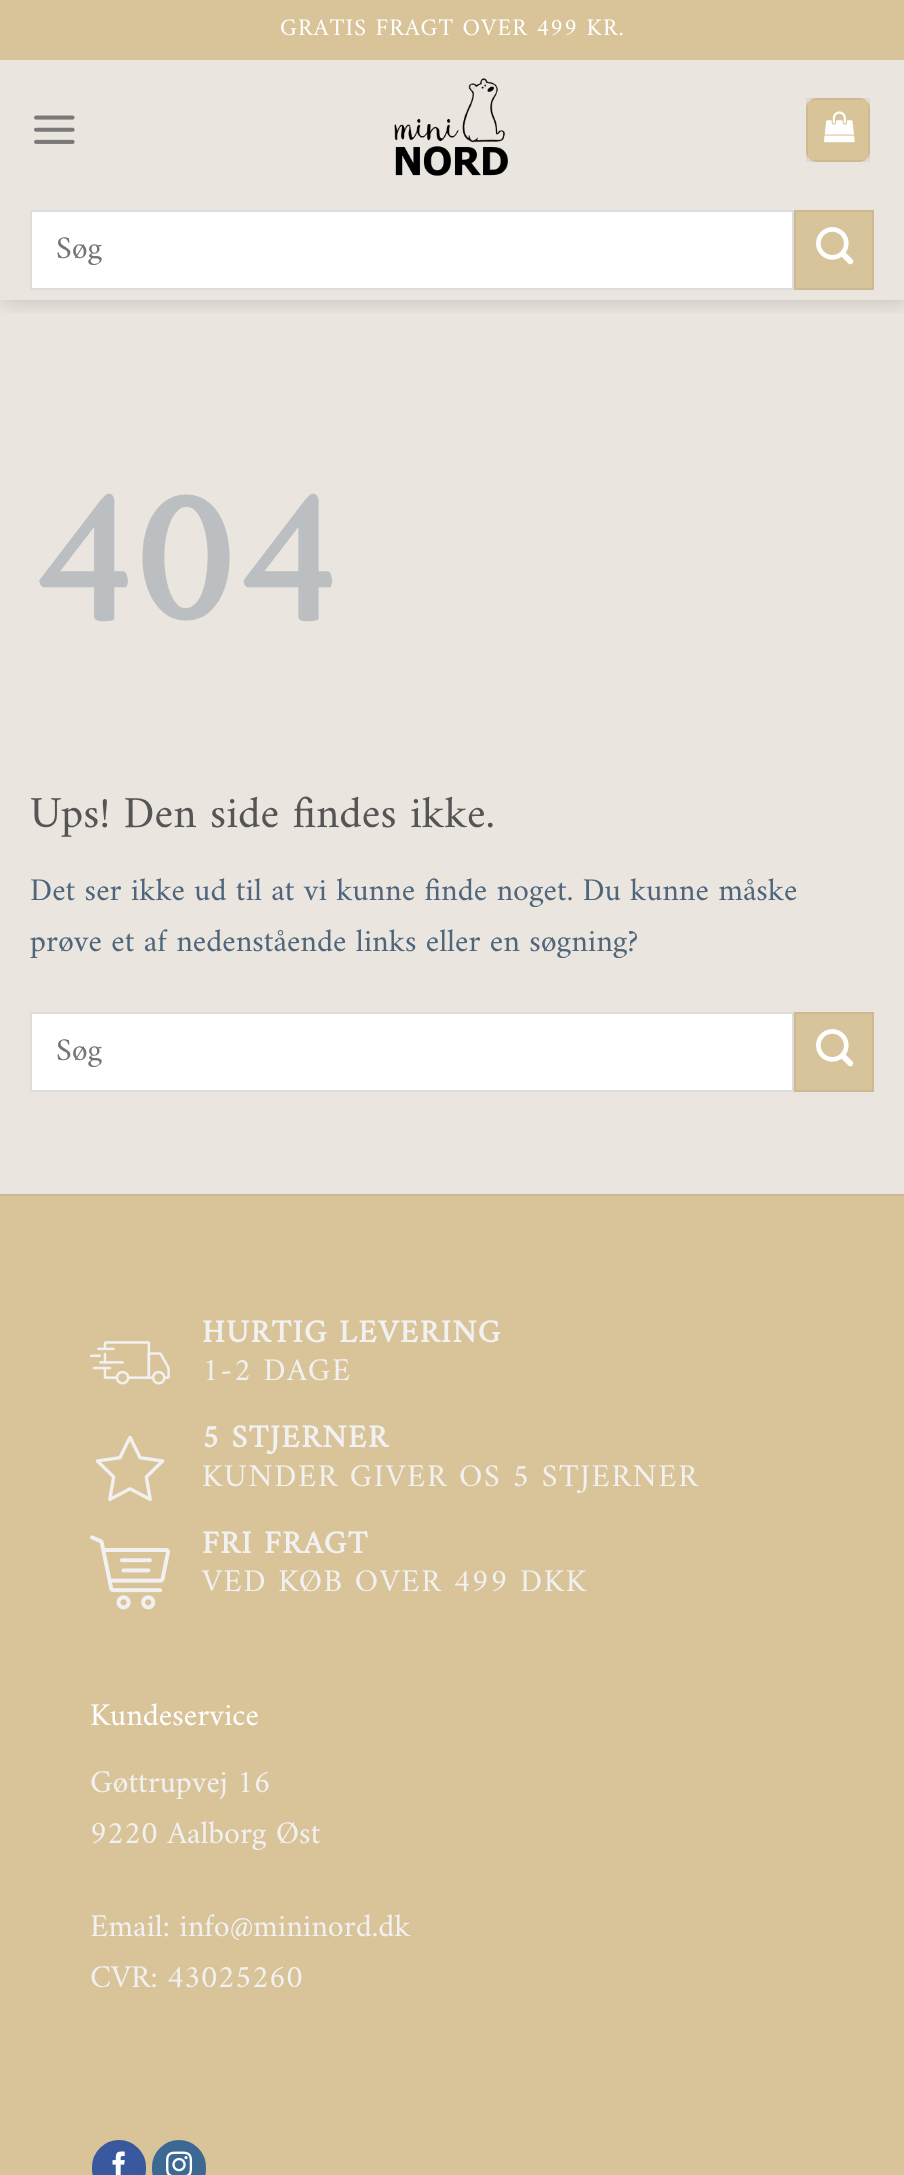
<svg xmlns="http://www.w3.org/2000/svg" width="904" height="2175">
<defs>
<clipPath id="clip1"><rect x="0" y="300" width="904" height="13"/></clipPath>
</defs>
<rect width="100%" height="100%" fill="#eae5df"/>
<g clip-path="url(#clip1)">
<rect x="2" y="2" width="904" height="300" fill="#00000026" filter="blur(10px)"/>
</g>
<rect width="904" height="60" fill="#d9c49a"/>
<text x="280" y="35" style="font-family:Amiri;font-size:24px;letter-spacing:1.2px;fill:#fff">GRATIS FRAGT OVER 499 KR.</text>
<image x="34" y="115" width="41" height="29" href="media/1.png"/>
<image x="394" y="78" width="114" height="98" href="media/2.png"/>
<rect x="806" y="98" width="64" height="64" rx="10" fill="#d9c49a"/>
<rect x="807" y="99" width="62" height="62" fill="none" stroke="#0000000d" stroke-width="2"/>
<image x="824" y="111" width="31" height="32" href="media/3.png"/>
<rect x="31" y="211" width="762" height="78" fill="#fff" stroke="#ddd" stroke-width="2"/>
<text x="56" y="258" style="font-family:Amiri;font-size:32px;fill:#757575">Søg</text>
<rect x="795" y="211" width="78" height="78" fill="#d8c49a" stroke="#cdba92" stroke-width="2"/>
<image x="816" y="227" width="38" height="38" href="media/4.png"/>
<text x="30" y="620" style="font-family:Amiri;font-size:192px;font-weight:bold;fill:#bbbfc1">404</text>
<text x="30" y="827" word-spacing="0.5" style="font-family:Amiri;font-size:44.75px;fill:#555">Ups! Den side findes ikke.</text>
<text x="30" y="900" style="font-family:Amiri;font-size:32px;fill:#4e657b">Det ser ikke ud til at vi kunne finde noget. Du kunne måske</text>
<text x="30" y="951" style="font-family:Amiri;font-size:32px;fill:#4e657b">prøve et af nedenstående links eller en søgning?</text>
<rect x="31" y="1013" width="762" height="78" fill="#fff" stroke="#ddd" stroke-width="2"/>
<text x="56" y="1060" style="font-family:Amiri;font-size:32px;fill:#757575">Søg</text>
<rect x="795" y="1013" width="78" height="78" fill="#d8c49a" stroke="#cdba92" stroke-width="2"/>
<image x="816" y="1029" width="38" height="38" href="media/4.png"/>
<rect y="1196" width="904" height="979" fill="#d9c49a"/>
<rect y="1194" width="904" height="2" fill="#ceba92"/>
<image x="90" y="1341" width="80" height="44" href="media/5.png"/>
<text x="202" y="1342" style="font-family:Amiri;font-size:32px;font-weight:bold;letter-spacing:1.6px;fill:#f1f1f1">HURTIG LEVERING</text>
<text x="202" y="1380" style="font-family:Amiri;font-size:32px;letter-spacing:1.6px;fill:#f1f1f1">1-2 DAGE</text>
<image x="95" y="1435" width="70" height="66" href="media/6.png"/>
<text x="202" y="1447" style="font-family:Amiri;font-size:32px;font-weight:bold;letter-spacing:1.6px;fill:#f1f1f1">5 STJERNER</text>
<text x="202" y="1486" style="font-family:Amiri;font-size:32px;letter-spacing:1.6px;fill:#f1f1f1">KUNDER GIVER OS 5 STJERNER</text>
<image x="90" y="1535" width="80" height="75" href="media/7.png"/>
<text x="202" y="1553" style="font-family:Amiri;font-size:32px;font-weight:bold;letter-spacing:1.6px;fill:#f1f1f1">FRI FRAGT</text>
<text x="202" y="1591" style="font-family:Amiri;font-size:32px;letter-spacing:1.6px;fill:#f1f1f1">VED KØB OVER 499 DKK</text>
<text x="90" y="1725" style="font-family:Amiri;font-size:32px;fill:#fff">Kundeservice</text>
<text x="90" y="1792" style="font-family:Amiri;font-size:32px;fill:#f1f1f1">Gøttrupvej 16</text>
<text x="90" y="1843" style="font-family:Amiri;font-size:32px;fill:#f1f1f1">9220 Aalborg Øst</text>
<text x="90" y="1936" style="font-family:Amiri;font-size:32px;fill:#f1f1f1">Email: info@mininord.dk</text>
<text x="90" y="1987" style="font-family:Amiri;font-size:32px;fill:#f1f1f1">CVR: 43025260</text>
<rect x="93" y="2141" width="52" height="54" rx="26" fill="#3a589d" stroke="#3a589d" stroke-width="2"/>
<image x="112" y="2151" width="13" height="24" href="media/8.png"/>
<rect x="153" y="2141" width="52" height="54" rx="26" fill="#3b6994" stroke="#3b6994" stroke-width="2"/>
<image x="166" y="2151" width="27" height="24" href="media/9.png"/>
</svg>
